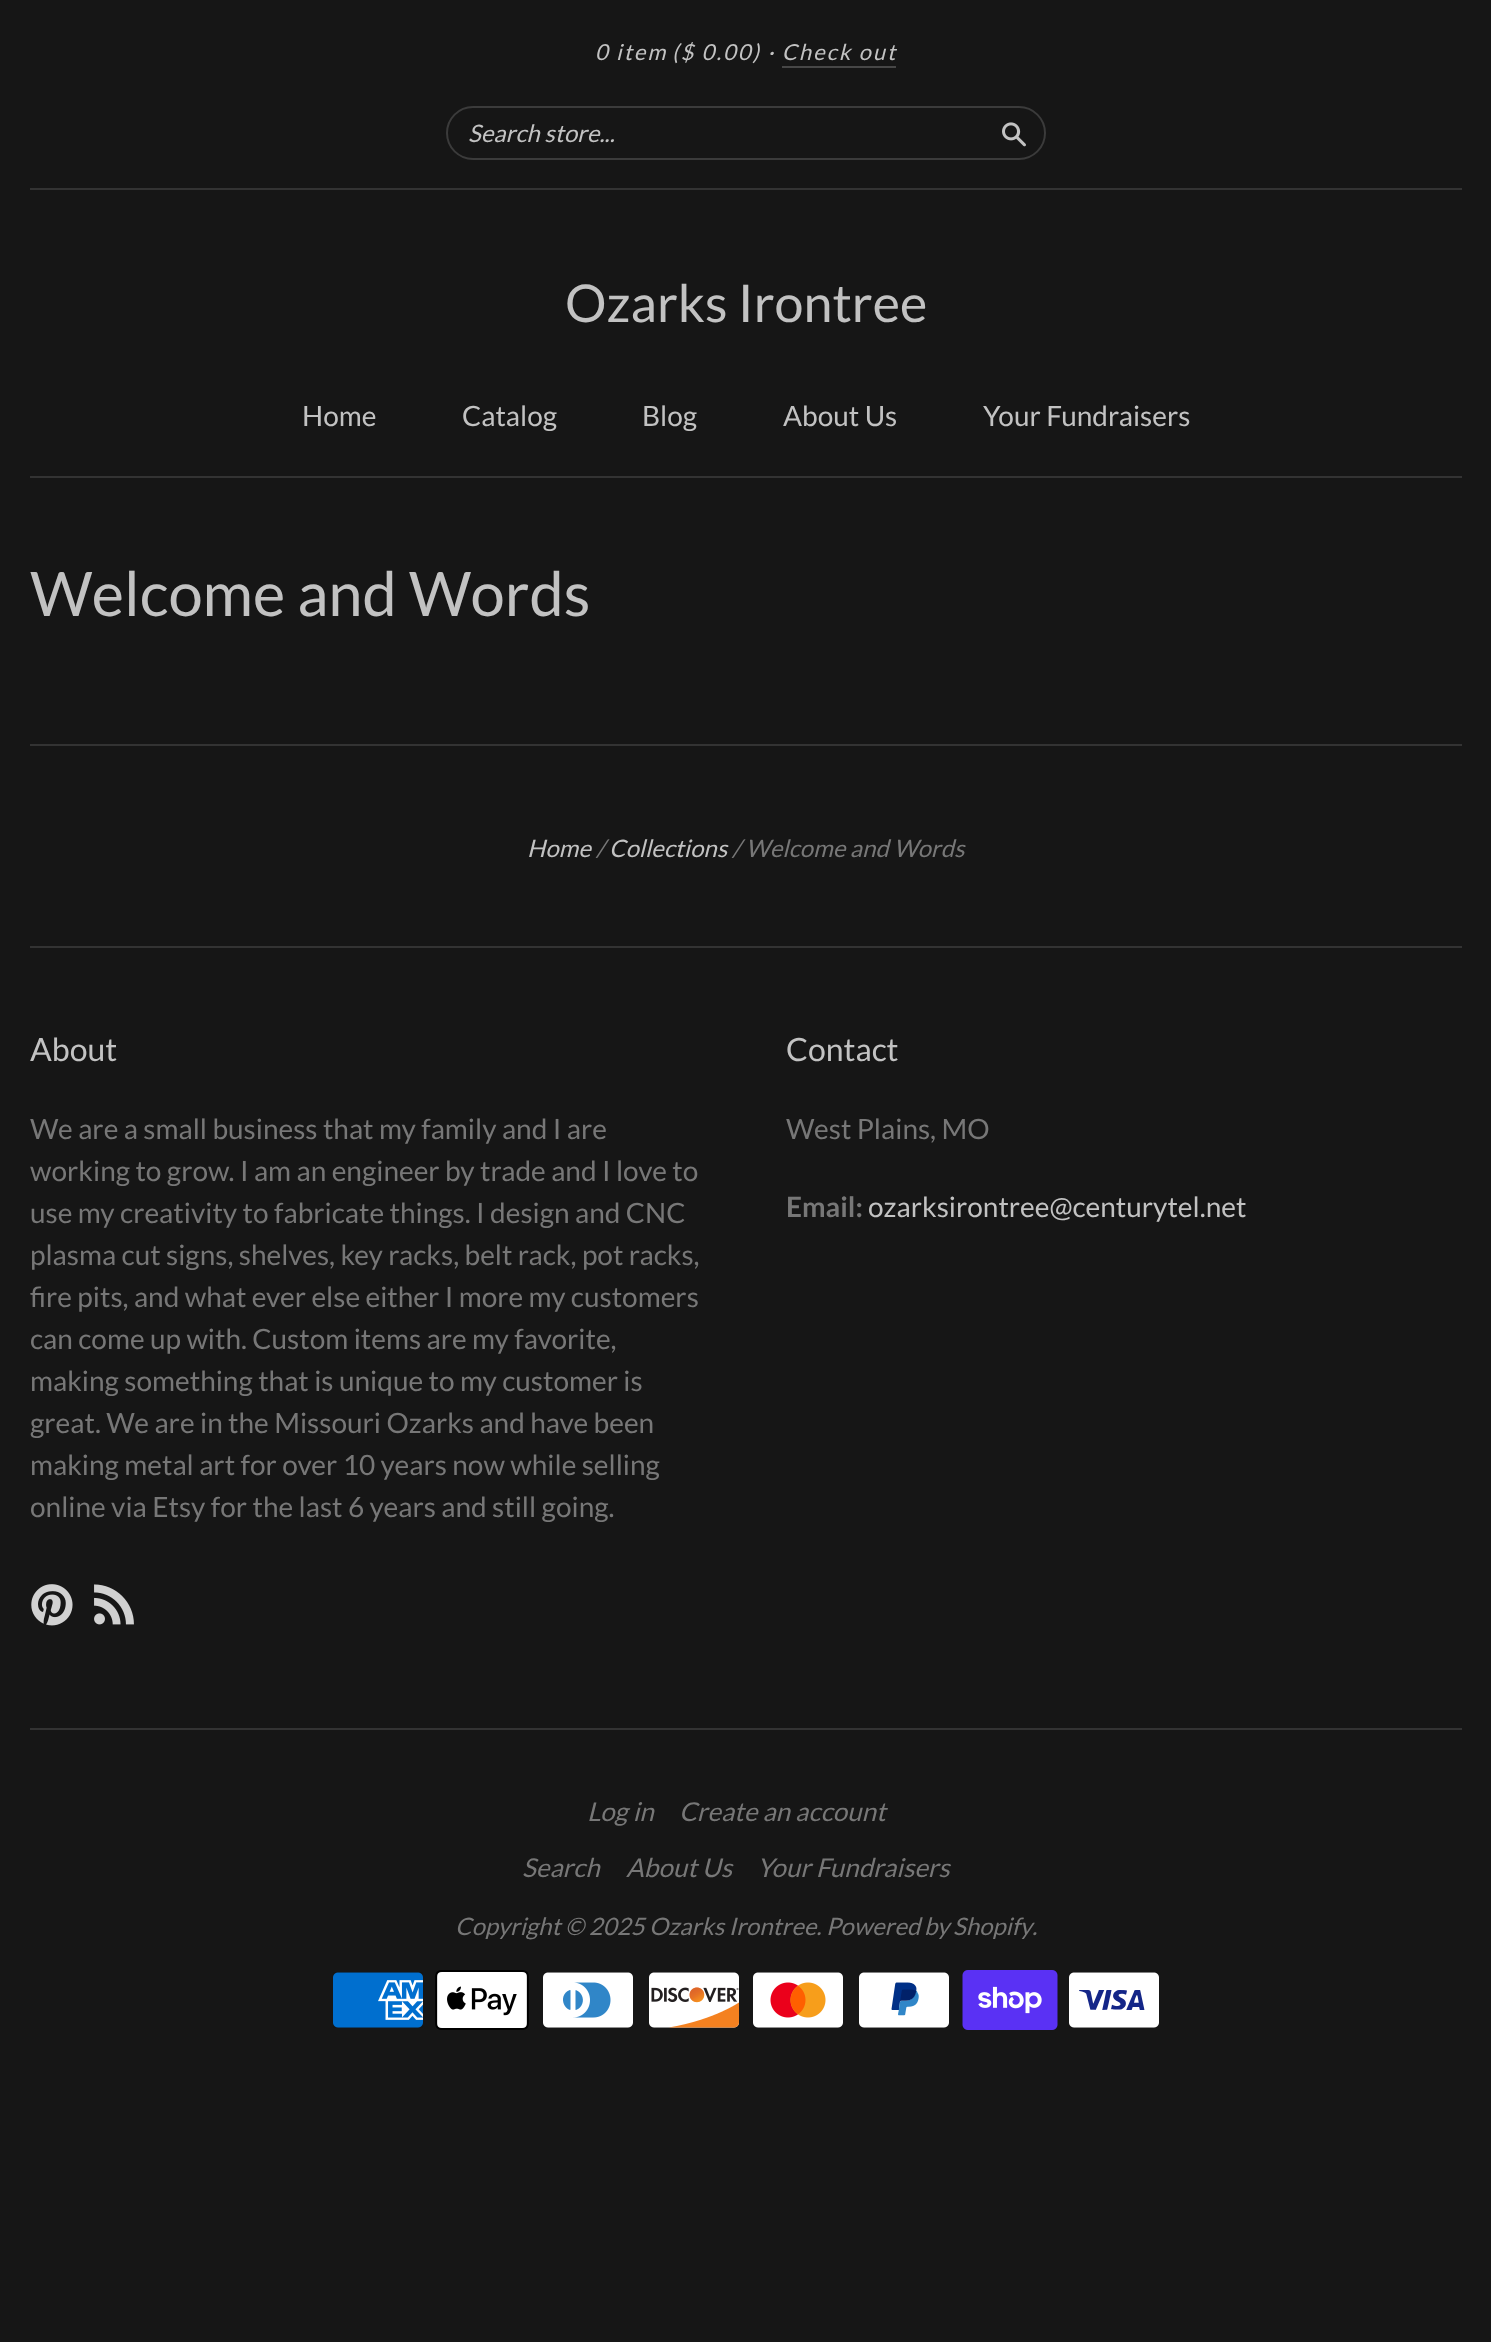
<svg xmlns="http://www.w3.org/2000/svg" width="1491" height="2342">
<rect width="100%" height="100%" fill="#161616"/>
<rect x="30" y="476" width="1432" height="2" fill="#333"/>
<rect x="30" y="188" width="1432" height="2" fill="#333"/>
<text x="595" y="60" style="font-family:Lato;font-size:22px;font-style:italic;letter-spacing:2px;fill:#c2c2c2">0 item</text>
<text x="672" y="60" style="font-family:Lato;font-size:22px;font-style:italic;letter-spacing:2px;fill:#c2c2c2">($ 0.00) · Check out</text>
<rect x="782" y="66" width="114" height="2" fill="#474747"/>
<rect x="447" y="107" width="598" height="52" rx="26" fill="none" stroke="#3b3b3b" stroke-width="2"/>
<text x="468" y="142" style="font-family:Lato;font-size:24px;font-style:italic;fill:#c2c2c2">Search store...</text>
<image x="1002" y="122" width="24" height="25" href="media/1.png"/>
<text x="565" y="322" style="font-family:Lato;font-size:52px;fill:#c2c2c2">Ozarks Irontree</text>
<text x="302" y="426" style="font-family:Lato;font-size:28px;fill:#c2c2c2">Home</text>
<text x="462" y="426" style="font-family:Lato;font-size:28px;fill:#c2c2c2">Catalog</text>
<text x="642" y="426" style="font-family:Lato;font-size:28px;fill:#c2c2c2">Blog</text>
<text x="783" y="426" style="font-family:Lato;font-size:28px;fill:#c2c2c2">About Us</text>
<text x="983" y="426" style="font-family:Lato;font-size:28px;fill:#c2c2c2">Your Fundraisers</text>
<text x="30" y="616" style="font-family:Lato;font-size:61.5px;fill:#c2c2c2">Welcome and Words</text>
<rect x="30" y="744" width="1432" height="2" fill="#333"/>
<text x="527" y="857" style="font-family:Lato;font-size:24px;font-style:italic;fill:#c2c2c2">Home</text>
<text x="596" y="857" style="font-family:Lato;font-size:24px;font-style:italic;fill:#777">/</text>
<text x="609" y="857" style="font-family:Lato;font-size:24px;font-style:italic;fill:#c2c2c2">Collections</text>
<text x="732" y="857" style="font-family:Lato;font-size:24px;font-style:italic;fill:#777">/ Welcome and Words</text>
<rect x="30" y="946" width="1432" height="2" fill="#333"/>
<text x="30" y="1061" style="font-family:Lato;font-size:32px;fill:#c2c2c2">About</text>
<text x="30" y="1139" style="font-family:Lato;font-size:28px;fill:#777">We are a small business that my family and I are</text>
<text x="30" y="1181" style="font-family:Lato;font-size:28px;fill:#777">working to grow. I am an engineer by trade and I love to</text>
<text x="30" y="1223" style="font-family:Lato;font-size:28px;fill:#777">use my creativity to fabricate things. I design and CNC</text>
<text x="30" y="1265" style="font-family:Lato;font-size:28px;fill:#777">plasma cut signs, shelves, key racks, belt rack, pot racks,</text>
<text x="30" y="1307" style="font-family:Lato;font-size:28px;fill:#777">fire pits, and what ever else either I more my customers</text>
<text x="30" y="1349" style="font-family:Lato;font-size:28px;fill:#777">can come up with. Custom items are my favorite,</text>
<text x="30" y="1391" style="font-family:Lato;font-size:28px;fill:#777">making something that is unique to my customer is</text>
<text x="30" y="1433" style="font-family:Lato;font-size:28px;fill:#777">great. We are in the Missouri Ozarks and have been</text>
<text x="30" y="1475" style="font-family:Lato;font-size:28px;fill:#777">making metal art for over 10 years now while selling</text>
<text x="30" y="1517" style="font-family:Lato;font-size:28px;fill:#777">online via Etsy for the last 6 years and still going.</text>
<image x="31" y="1584" width="42" height="42" href="media/2.png"/>
<image x="94" y="1584" width="40" height="41" href="media/3.png"/>
<text x="786" y="1061" style="font-family:Lato;font-size:32px;fill:#c2c2c2">Contact</text>
<text x="786" y="1139" style="font-family:Lato;font-size:28px;fill:#777">West Plains, MO</text>
<text x="786" y="1217" style="font-family:Lato;font-size:28px;font-weight:bold;fill:#777">Email:</text>
<text x="868" y="1217" style="font-family:Lato;font-size:28px;fill:#c2c2c2">ozarksirontree@centurytel.net</text>
<rect x="30" y="1728" width="1432" height="2" fill="#333"/>
<text x="587" y="1821" style="font-family:Lato;font-size:26px;font-style:italic;fill:#777">Log in</text>
<text x="679" y="1821" style="font-family:Lato;font-size:26px;font-style:italic;fill:#777">Create an account</text>
<text x="522" y="1877" style="font-family:Lato;font-size:26px;font-style:italic;fill:#777">Search</text>
<text x="626" y="1877" style="font-family:Lato;font-size:26px;font-style:italic;fill:#777">About Us</text>
<text x="757" y="1877" style="font-family:Lato;font-size:26px;font-style:italic;fill:#777">Your Fundraisers</text>
<text x="455" y="1935" style="font-family:Lato;font-size:24px;font-style:italic;fill:#777">Copyright © 2025 Ozarks Irontree.</text>
<text x="826" y="1935" word-spacing="-1" style="font-family:Lato;font-size:24px;font-style:italic;fill:#777">Powered by Shopify</text>
<text x="1032" y="1935" style="font-family:Lato;font-size:24px;font-style:italic;fill:#777">.</text>
<image x="333" y="1972" width="90" height="56" href="media/4.png"/>
<image x="435" y="1970" width="94" height="60" href="media/5.png"/>
<image x="543" y="1972" width="90" height="56" href="media/6.png"/>
<image x="649" y="1972" width="91" height="56" href="media/7.png"/>
<image x="753" y="1972" width="90" height="56" href="media/8.png"/>
<image x="859" y="1972" width="90" height="56" href="media/9.png"/>
<image x="962" y="1970" width="96" height="60" href="media/10.png"/>
<image x="1069" y="1972" width="90" height="56" href="media/11.png"/>
</svg>
